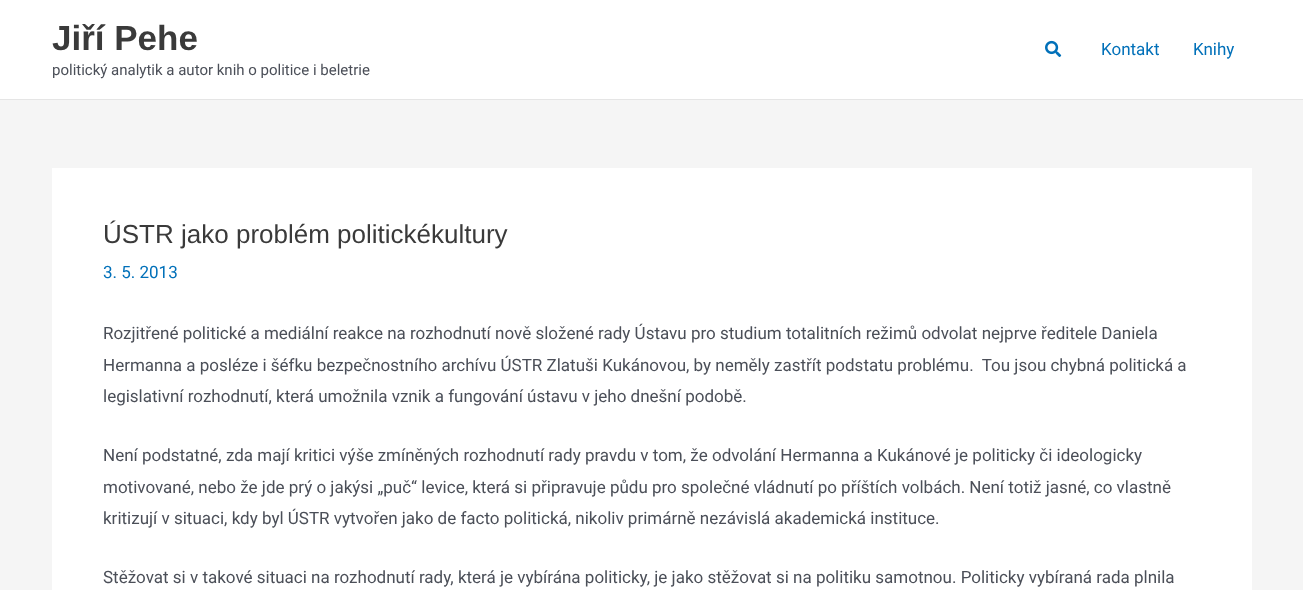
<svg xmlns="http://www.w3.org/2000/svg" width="1303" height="590">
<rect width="100%" height="100%" fill="#f5f5f5"/>
<rect width="1303" height="99" fill="#fff"/>
<rect y="99" width="1303" height="1" fill="#e5e5e5"/>
<text x="52" y="50" style="font-family:Liberation Sans;font-size:35px;font-weight:bold;fill:#3a3a3a">Jiří Pehe</text>
<text x="52" y="75" style="font-family:Roboto;font-size:15px;fill:#4b4f58">politický analytik a autor knih o politice i beletrie</text>
<image x="1045" y="40" width="17" height="17" href="media/1.png"/>
<text x="1101" y="55" style="font-family:Roboto;font-size:17px;fill:#0170b9">Kontakt</text>
<text x="1193" y="55" style="font-family:Roboto;font-size:17px;fill:#0170b9">Knihy</text>
<rect x="52" y="168" width="1200" height="422" fill="#fff"/>
<text x="103" y="243" style="font-family:Liberation Sans;font-size:26px;fill:#3a3a3a">ÚSTR jako problém politickékultury</text>
<text x="103" y="278" style="font-family:Roboto;font-size:17px;fill:#0170b9">3. 5. 2013</text>
<text x="103" y="339" style="font-family:Roboto;font-size:17px;fill:#4b4f58">Rozjitřené politické a mediální reakce na rozhodnutí nově složené rady Ústavu pro studium totalitních režimů odvolat nejprve ředitele Daniela</text>
<text x="103" y="371" style="font-family:Roboto;font-size:17px;fill:#4b4f58" xml:space="preserve">Hermanna a posléze i šéfku bezpečnostního archívu ÚSTR Zlatuši Kukánovou, by neměly zastřít podstatu problému.  Tou jsou chybná politická a</text>
<text x="103" y="402" style="font-family:Roboto;font-size:17px;fill:#4b4f58">legislativní rozhodnutí, která umožnila vznik a fungování ústavu v jeho dnešní podobě.</text>
<text x="103" y="461" style="font-family:Roboto;font-size:17px;fill:#4b4f58">Není podstatné, zda mají kritici výše zmíněných rozhodnutí rady pravdu v tom, že odvolání Hermanna a Kukánové je politicky či ideologicky</text>
<text x="103" y="493" style="font-family:Roboto;font-size:17px;fill:#4b4f58">motivované, nebo že jde prý o jakýsi „puč“ levice, která si připravuje půdu pro společné vládnutí po příštích volbách. Není totiž jasné, co vlastně</text>
<text x="103" y="524" style="font-family:Roboto;font-size:17px;fill:#4b4f58">kritizují v situaci, kdy byl ÚSTR vytvořen jako de facto politická, nikoliv primárně nezávislá akademická instituce.</text>
<text x="103" y="583" style="font-family:Roboto;font-size:17px;fill:#4b4f58">Stěžovat si v takové situaci na rozhodnutí rady, která je vybírána politicky, je jako stěžovat si na politiku samotnou. Politicky vybíraná rada plnila</text>
</svg>
